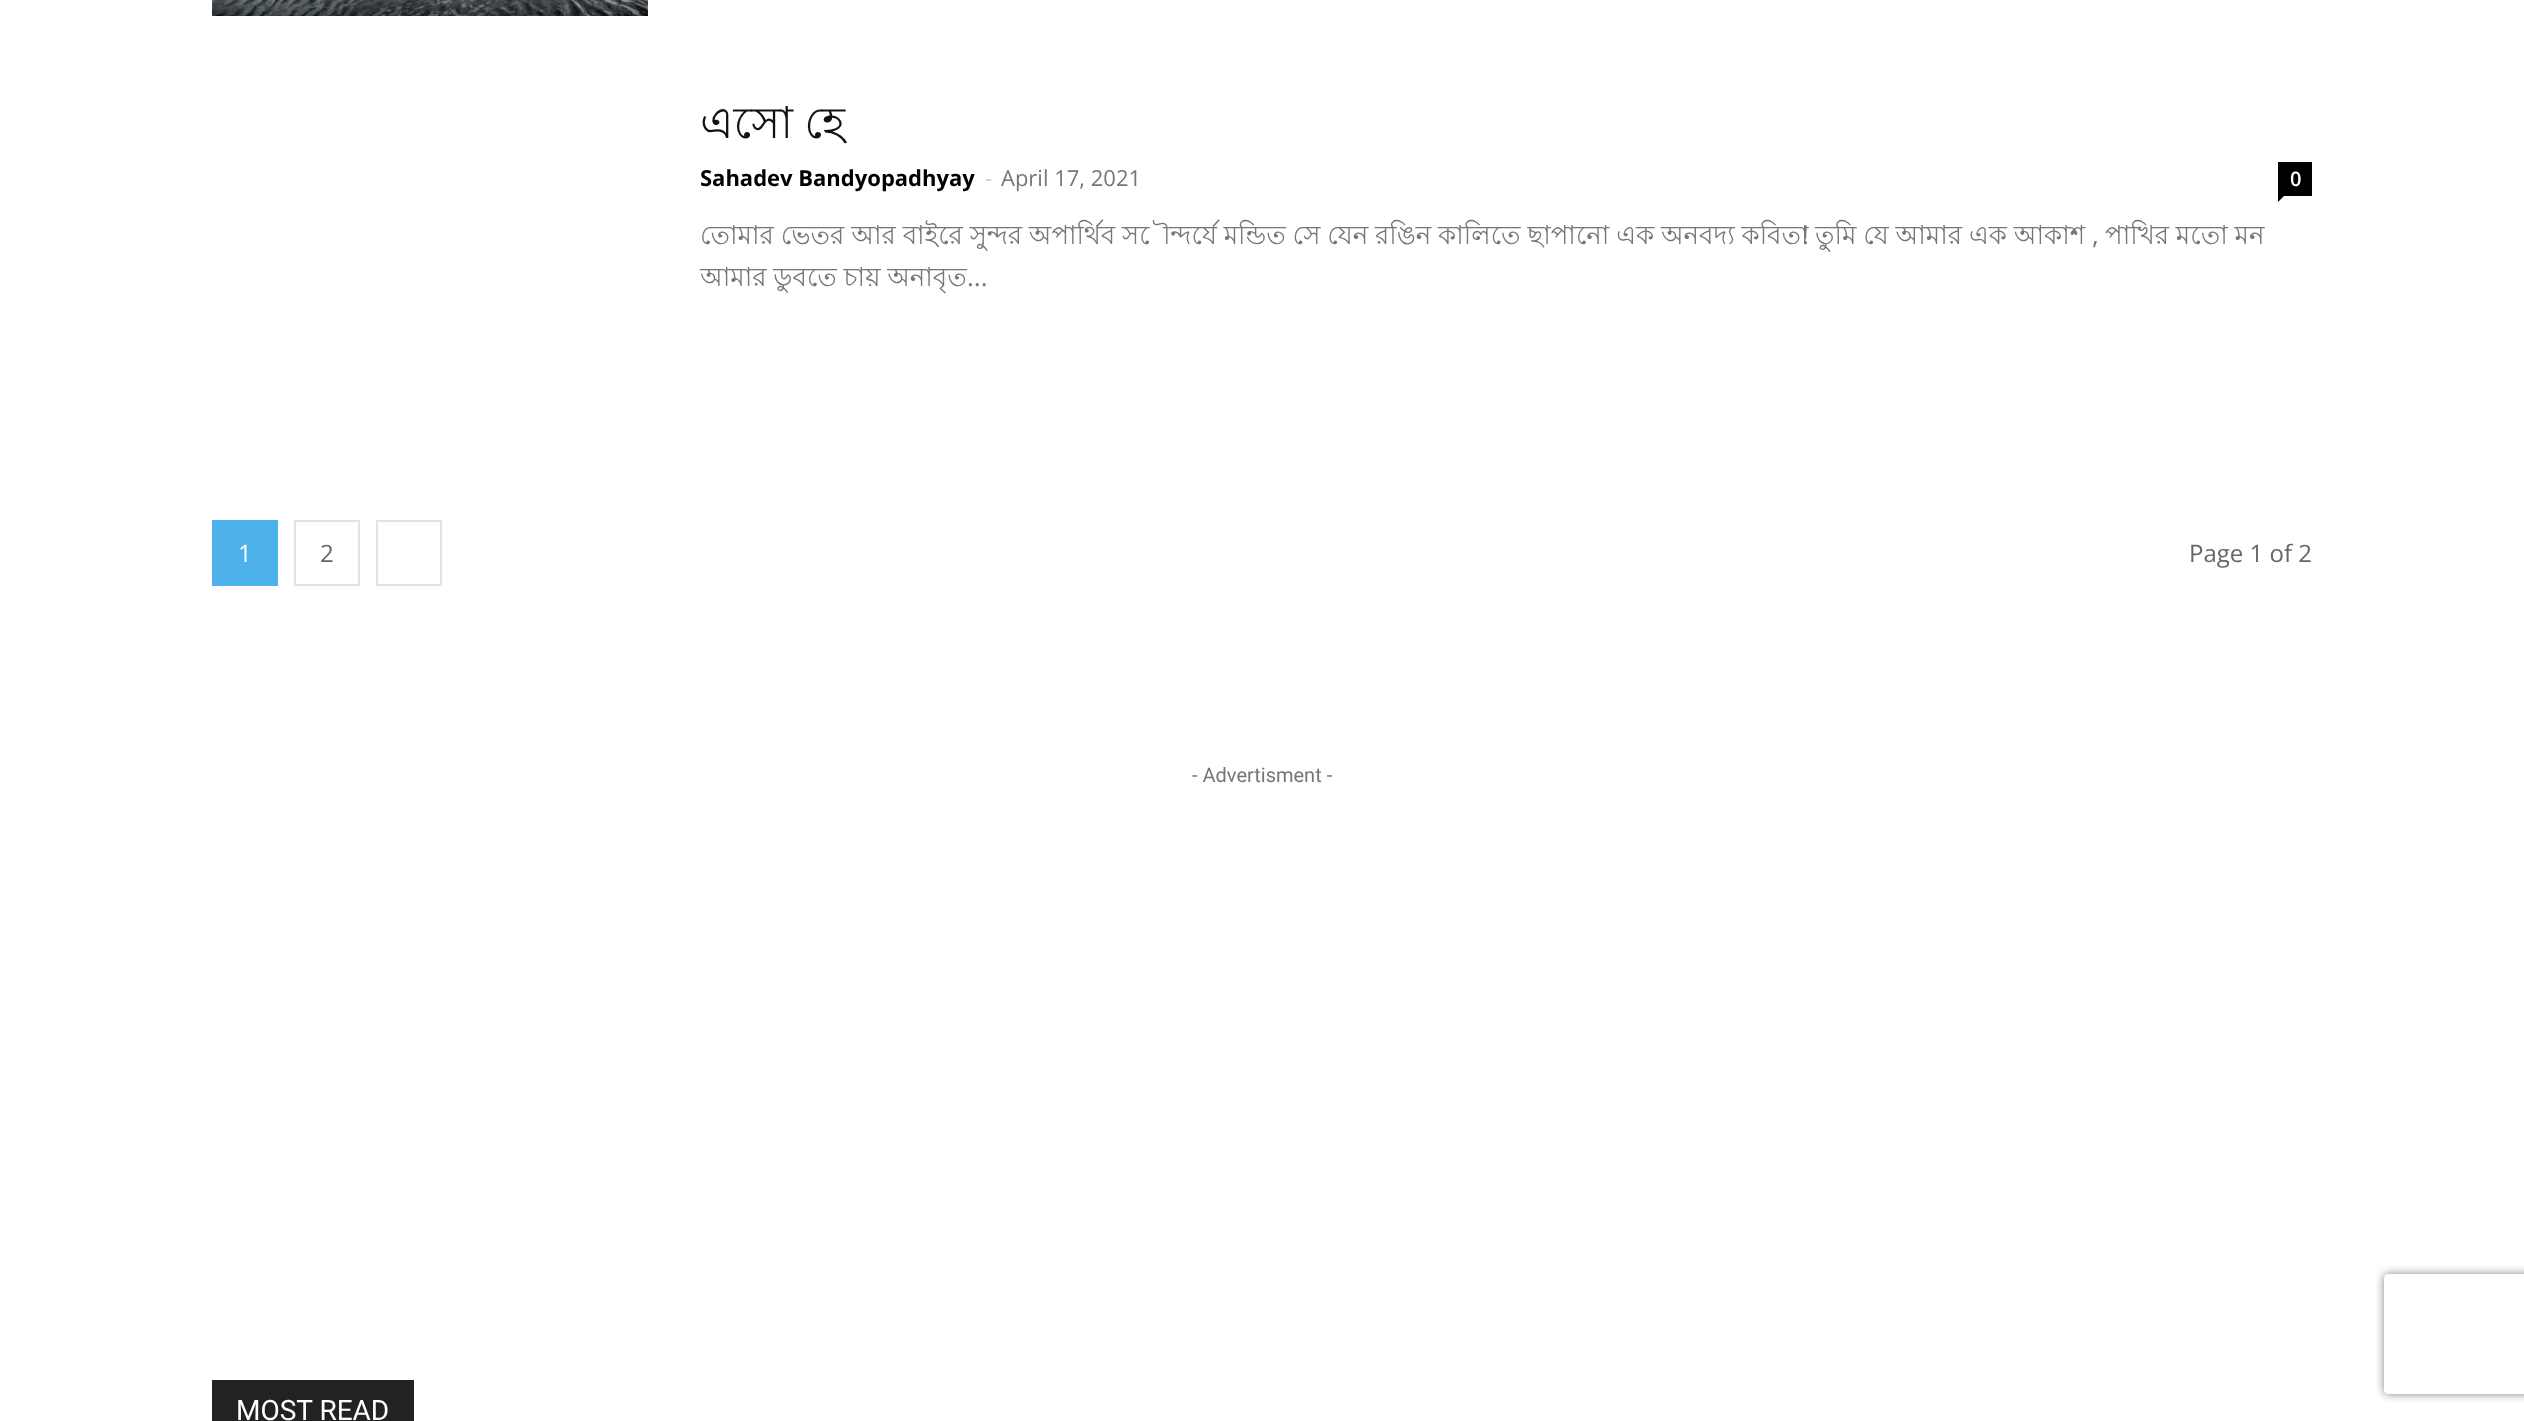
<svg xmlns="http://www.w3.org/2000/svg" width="2524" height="1421">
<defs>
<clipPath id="clip1"><path d="M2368 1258h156v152h-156zm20 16h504c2 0 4 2 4 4v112c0 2-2 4-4 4h-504c-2 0-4-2-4-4v-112c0-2 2-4 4-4z" clip-rule="evenodd"/></clipPath>
</defs>
<rect width="100%" height="100%" fill="#fff"/>
<image x="212" y="0" width="436" height="16" href="media/1.png"/>
<text x="700" y="138" word-spacing="-1" style="font-family:Lohit Bengali;font-size:44px;fill:#111">এসো হে</text>
<text x="700" y="186" style="font-family:Open Sans;font-size:22px;font-weight:bold;fill:#000">Sahadev Bandyopadhyay</text>
<text x="985" y="186" style="font-family:Open Sans;font-size:22px;fill:#ccc">-</text>
<text x="1001" y="186" style="font-family:Open Sans;font-size:22px;fill:#767676">April 17, 2021</text>
<rect x="2278" y="162" width="34" height="34" fill="#000"/>
<text x="2290" y="186" style="font-family:Open Sans;font-size:20px;font-weight:600;fill:#fff">0</text>
<path d="M2278 196h6l-6 6z" fill="#000"/>
<text x="700" y="244" word-spacing="-0.4" style="font-family:Lohit Bengali;font-size:26px;fill:#767676">তোমার ভেতর আর বাইরে সুন্দর অপার্থিব সৌন্দর্যে মন্ডিত সে যেন রঙিন কালিতে ছাপানো এক অনবদ্য কবিতা</text>
<text x="1802" y="244" style="font-family:Open Sans;font-size:26px;fill:#767676">!</text>
<text x="1815" y="244" word-spacing="-0.4" style="font-family:Lohit Bengali;font-size:26px;fill:#767676">তুমি যে আমার এক আকাশ</text>
<text x="2105" y="244" word-spacing="-0.4" style="font-family:Lohit Bengali;font-size:26px;fill:#767676">পাখির মতো মন</text>
<text x="2092" y="244" style="font-family:Open Sans;font-size:26px;fill:#767676">,</text>
<text x="700" y="286" word-spacing="-0.5" style="font-family:Lohit Bengali;font-size:26px;fill:#767676">আমার ডুবতে চায় অনাবৃত</text>
<text x="967" y="286" style="font-family:Open Sans;font-size:26px;fill:#767676">...</text>
<rect x="212" y="520" width="66" height="66" fill="#4db2ec"/>
<text x="238" y="562" style="font-family:Open Sans;font-size:24px;fill:#fff">1</text>
<rect x="295" y="521" width="64" height="64" fill="none" stroke="#e3e3e3" stroke-width="2"/>
<text x="320" y="562" style="font-family:Open Sans;font-size:24px;fill:#666">2</text>
<rect x="377" y="521" width="64" height="64" fill="none" stroke="#e3e3e3" stroke-width="2"/>
<text x="2189" y="562" style="font-family:Open Sans;font-size:24px;fill:#666">Page 1 of 2</text>
<text x="1192" y="782" style="font-family:Roboto;font-size:20px;fill:#767676">- Advertisment -</text>
<rect x="212" y="1380" width="202" height="41" fill="#222"/>
<text x="236" y="1420" style="font-family:Roboto;font-size:28px;fill:#fff">MOST READ</text>
<g clip-path="url(#clip1)">
<rect x="2384" y="1274" width="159" height="120" rx="4" fill="#808080" filter="blur(5px)"/>
</g>
</svg>
